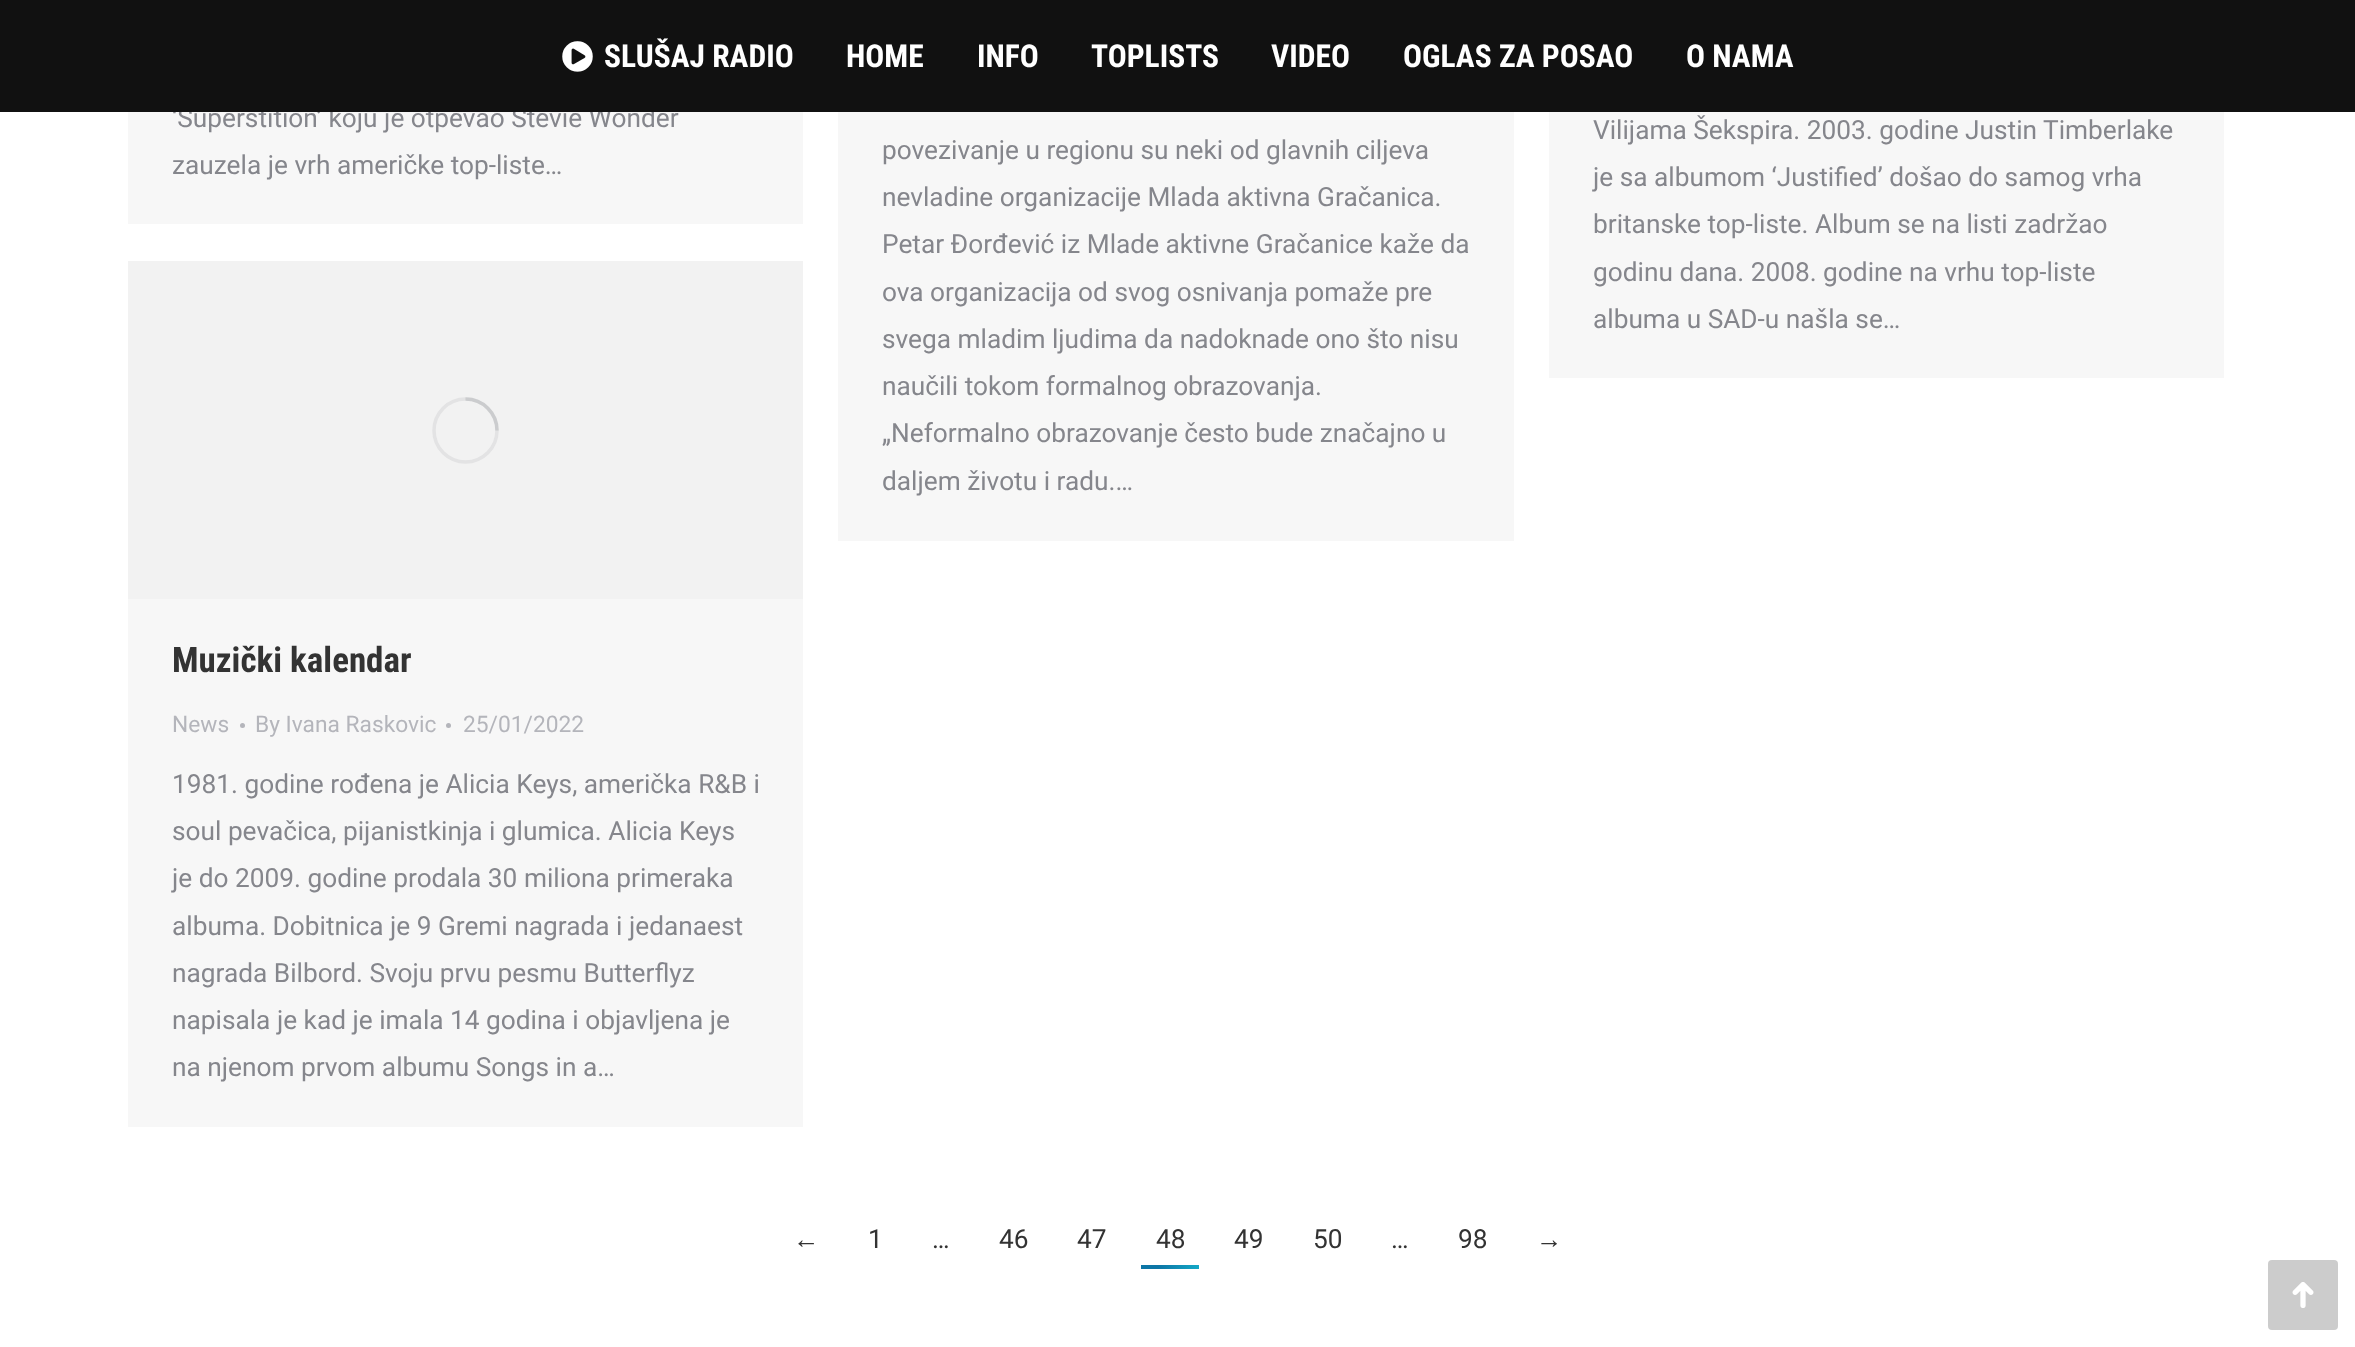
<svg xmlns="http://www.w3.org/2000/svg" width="2355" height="1347">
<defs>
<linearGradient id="g1" gradientUnits="userSpaceOnUse" x1="1141" y1="1267" x2="1199" y2="1267"><stop offset="0.3" stop-color="#0d76a6"/><stop offset="1" stop-color="#13a8c6"/></linearGradient>
</defs>
<rect width="100%" height="100%" fill="#fff"/>
<rect x="128" y="112" width="675" height="112" fill="#f7f7f7"/>
<text x="172" y="127" style="font-family:Roboto;font-size:26.25px;fill:#85868c">‘Superstition’ koju je otpevao Stevie Wonder</text>
<rect width="2355" height="112" fill="#111"/>
<image x="562" y="41" width="31" height="31" href="media/1.png"/>
<text x="604" y="67" style="font-family:Roboto Condensed;font-size:31.5px;font-weight:bold;fill:#fff">SLUŠAJ RADIO</text>
<text x="846" y="67" style="font-family:Roboto Condensed;font-size:31.5px;font-weight:bold;fill:#fff">HOME</text>
<text x="977" y="67" style="font-family:Roboto Condensed;font-size:31.5px;font-weight:bold;fill:#fff">INFO</text>
<text x="1091" y="67" style="font-family:Roboto Condensed;font-size:31.5px;font-weight:bold;fill:#fff">TOPLISTS</text>
<text x="1271" y="67" style="font-family:Roboto Condensed;font-size:31.5px;font-weight:bold;fill:#fff">VIDEO</text>
<text x="1403" y="67" style="font-family:Roboto Condensed;font-size:31.5px;font-weight:bold;fill:#fff">OGLAS ZA POSAO</text>
<text x="1686" y="67" style="font-family:Roboto Condensed;font-size:31.5px;font-weight:bold;fill:#fff">O NAMA</text>
<text x="172" y="174" style="font-family:Roboto;font-size:26.25px;fill:#85868c">zauzela je vrh američke top-liste…</text>
<rect x="838" y="112" width="676" height="429" fill="#f7f7f7"/>
<text x="882" y="159" style="font-family:Roboto;font-size:26.25px;fill:#85868c">povezivanje u regionu su neki od glavnih ciljeva</text>
<text x="882" y="206" style="font-family:Roboto;font-size:26.25px;fill:#85868c">nevladine organizacije Mlada aktivna Gračanica.</text>
<text x="882" y="253" style="font-family:Roboto;font-size:26.25px;fill:#85868c">Petar Đorđević iz Mlade aktivne Gračanice kaže da</text>
<text x="882" y="301" style="font-family:Roboto;font-size:26.25px;fill:#85868c">ova organizacija od svog osnivanja pomaže pre</text>
<text x="882" y="348" style="font-family:Roboto;font-size:26.25px;fill:#85868c">svega mladim ljudima da nadoknade ono što nisu</text>
<text x="882" y="395" style="font-family:Roboto;font-size:26.25px;fill:#85868c">naučili tokom formalnog obrazovanja.</text>
<text x="882" y="442" style="font-family:Roboto;font-size:26.25px;fill:#85868c">„Neformalno obrazovanje često bude značajno u</text>
<text x="882" y="490" style="font-family:Roboto;font-size:26.25px;fill:#85868c">daljem životu i radu.…</text>
<rect x="1549" y="112" width="675" height="266" fill="#f7f7f7"/>
<text x="1593" y="139" style="font-family:Roboto;font-size:26.25px;fill:#85868c">Vilijama Šekspira. 2003. godine Justin Timberlake</text>
<text x="1593" y="186" style="font-family:Roboto;font-size:26.25px;fill:#85868c">je sa albumom ‘Justified’ došao do samog vrha</text>
<text x="1593" y="233" style="font-family:Roboto;font-size:26.25px;fill:#85868c">britanske top-liste. Album se na listi zadržao</text>
<text x="1593" y="281" style="font-family:Roboto;font-size:26.25px;fill:#85868c">godinu dana. 2008. godine na vrhu top-liste</text>
<text x="1593" y="328" style="font-family:Roboto;font-size:26.25px;fill:#85868c">albuma u SAD-u našla se…</text>
<rect x="128" y="599" width="675" height="528" fill="#f7f7f7"/>
<rect x="128" y="261" width="675" height="338" fill="#f2f2f2"/>
<circle cx="465.5" cy="430.5" r="31.5" fill="none" stroke="#e3e3e4" stroke-width="3.5"/>
<path d="M497 430.5c0-17.5-14-31.5-31.5-31.5" fill="none" stroke="#85868c40" stroke-width="3.5"/>
<text x="172" y="672" style="font-family:Roboto Condensed;font-size:35px;font-weight:bold;fill:#333">Muzički kalendar</text>
<text x="172" y="732" style="font-family:Roboto;font-size:22.75px;fill:#b4b5bb">News</text>
<circle cx="242.5" cy="725.5" r="2.5" fill="#b4b5bb"/>
<text x="255" y="732" style="font-family:Roboto;font-size:22.75px;fill:#b4b5bb">By Ivana Raskovic</text>
<circle cx="448.5" cy="725.5" r="2.5" fill="#b4b5bb"/>
<text x="463" y="732" style="font-family:Roboto;font-size:22.75px;fill:#b4b5bb">25/01/2022</text>
<text x="172" y="793" style="font-family:Roboto;font-size:26.25px;fill:#85868c">1981. godine rođena je Alicia Keys, američka R&amp;B i</text>
<text x="172" y="840" style="font-family:Roboto;font-size:26.25px;fill:#85868c">soul pevačica, pijanistkinja i glumica. Alicia Keys</text>
<text x="172" y="887" style="font-family:Roboto;font-size:26.25px;fill:#85868c">je do 2009. godine prodala 30 miliona primeraka</text>
<text x="172" y="935" style="font-family:Roboto;font-size:26.25px;fill:#85868c">albuma. Dobitnica je 9 Gremi nagrada i jedanaest</text>
<text x="172" y="982" style="font-family:Roboto;font-size:26.25px;fill:#85868c">nagrada Bilbord. Svoju prvu pesmu Butterflyz</text>
<text x="172" y="1029" style="font-family:Roboto;font-size:26.25px;fill:#85868c">napisala je kad je imala 14 godina i objavljena je</text>
<text x="172" y="1076" style="font-family:Roboto;font-size:26.25px;fill:#85868c">na njenom prvom albumu Songs in a…</text>
<text x="793" y="1248" style="font-family:Liberation Sans;font-size:26.25px;fill:#333">←</text>
<text x="868" y="1248" style="font-family:Roboto;font-size:26.25px;fill:#333">1</text>
<text x="932" y="1248" style="font-family:Roboto;font-size:26.25px;fill:#333">…</text>
<text x="999" y="1248" style="font-family:Roboto;font-size:26.25px;fill:#333">46</text>
<text x="1077" y="1248" style="font-family:Roboto;font-size:26.25px;fill:#333">47</text>
<text x="1156" y="1248" style="font-family:Roboto;font-size:26.25px;fill:#333">48</text>
<rect x="1141" y="1265" width="58" height="4" fill="url(#g1)"/>
<text x="1234" y="1248" style="font-family:Roboto;font-size:26.25px;fill:#333">49</text>
<text x="1313" y="1248" style="font-family:Roboto;font-size:26.25px;fill:#333">50</text>
<text x="1391" y="1248" style="font-family:Roboto;font-size:26.25px;fill:#333">…</text>
<text x="1458" y="1248" style="font-family:Roboto;font-size:26.25px;fill:#333">98</text>
<text x="1536" y="1248" style="font-family:Liberation Sans;font-size:26.25px;fill:#333">→</text>
<rect x="2268" y="1260" width="70" height="70" rx="4" fill="#ccc"/>
<image x="2292" y="1282" width="22" height="26" href="media/2.png"/>
</svg>
